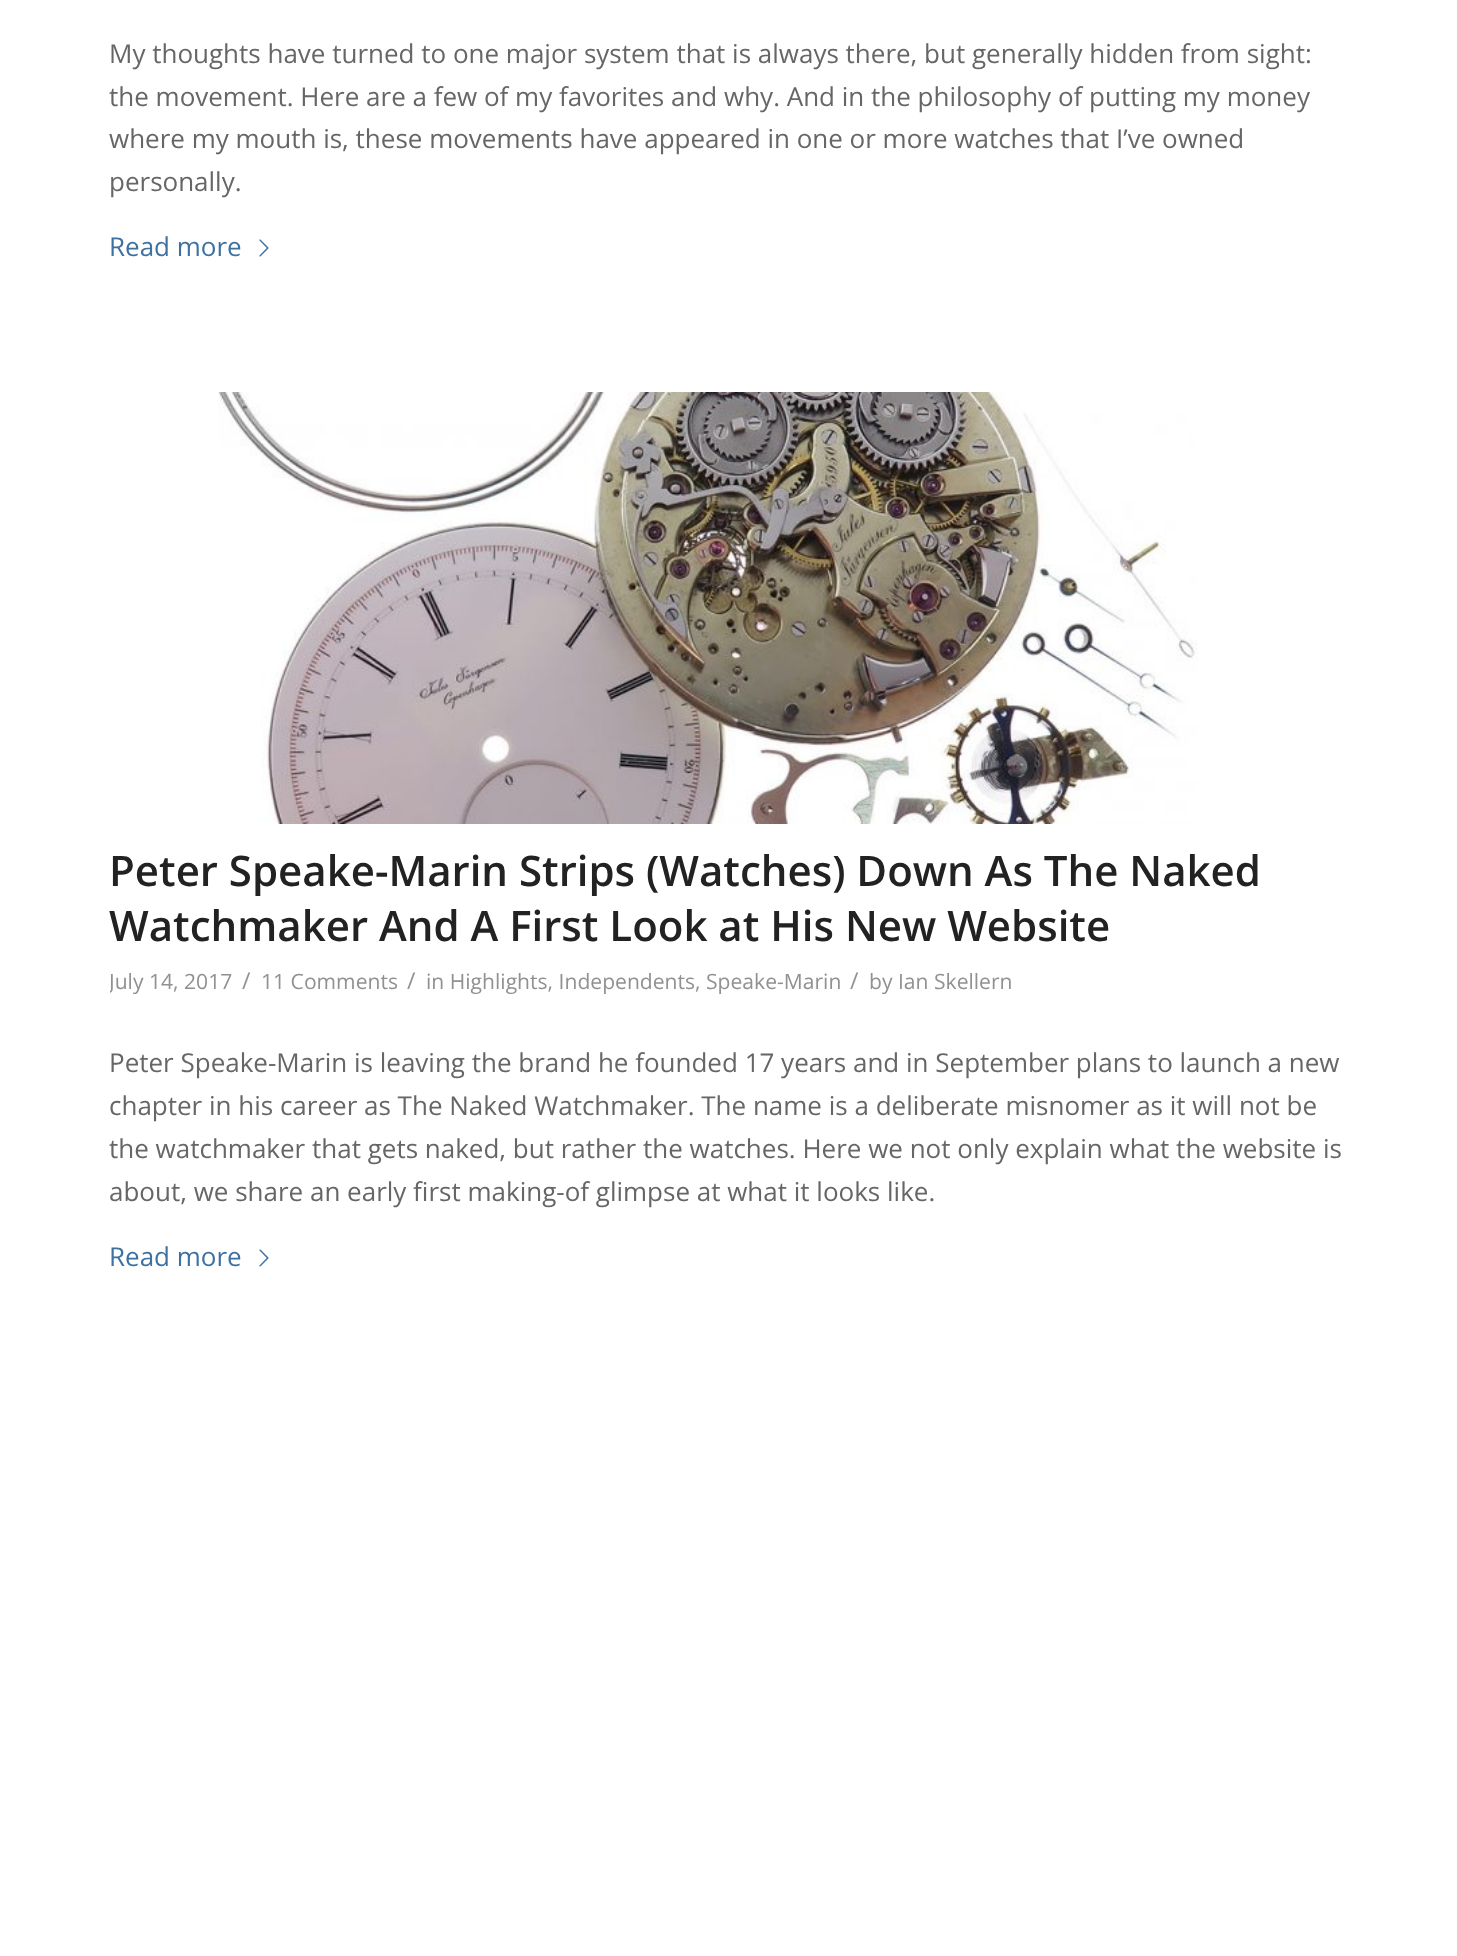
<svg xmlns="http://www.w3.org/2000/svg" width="1457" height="1956">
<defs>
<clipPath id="clip1"><rect x="110" y="844" width="1238" height="556"/></clipPath>
</defs>
<rect width="100%" height="100%" fill="#fff"/>
<text x="109" y="63" style="font-family:Open Sans;font-size:26px;fill:#666">My thoughts have turned to one major system that is always there, but generally hidden from sight:</text>
<text x="109" y="106" style="font-family:Open Sans;font-size:26px;fill:#666">the movement. Here are a few of my favorites and why. And in the philosophy of putting my money</text>
<text x="109" y="148" style="font-family:Open Sans;font-size:26px;fill:#666">where my mouth is, these movements have appeared in one or more watches that I’ve owned</text>
<text x="109" y="191" style="font-family:Open Sans;font-size:26px;fill:#666">personally.</text>
<text x="109" y="256" style="font-family:Open Sans;font-size:26px;fill:#3d71a1">Read more</text>
<image x="259" y="239" width="10" height="18" href="media/1.png"/>
<image x="218" y="392" width="980" height="432" href="media/2.png"/>
<text x="109" y="886" style="font-family:Open Sans;font-size:42px;font-weight:600;fill:#222">Peter Speake-Marin Strips (Watches) Down As The Naked</text>
<text x="109" y="941" style="font-family:Open Sans;font-size:42px;font-weight:600;fill:#222">Watchmaker And A First Look at His New Website</text>
<g clip-path="url(#clip1)">
<text x="109" y="989" style="font-family:Open Sans;font-size:21.1px;fill:#919191">July 14, 2017</text>
</g>
<text x="242" y="989" style="font-family:Open Sans;font-size:23px;fill:#919191">/</text>
<text x="261" y="989" style="font-family:Open Sans;font-size:21.1px;fill:#919191">11 Comments</text>
<text x="407" y="989" style="font-family:Open Sans;font-size:23px;fill:#919191">/</text>
<text x="426" y="989" style="font-family:Open Sans;font-size:21.1px;fill:#919191">in Highlights, Independents, Speake-Marin</text>
<text x="850" y="989" style="font-family:Open Sans;font-size:23px;fill:#919191">/</text>
<text x="869" y="989" style="font-family:Open Sans;font-size:21.1px;fill:#919191">by Ian Skellern</text>
<text x="109" y="1072" style="font-family:Open Sans;font-size:26px;fill:#666">Peter Speake-Marin is leaving the brand he founded 17 years and in September plans to launch a new</text>
<text x="109" y="1115" style="font-family:Open Sans;font-size:26px;fill:#666">chapter in his career as The Naked Watchmaker. The name is a deliberate misnomer as it will not be</text>
<text x="109" y="1158" style="font-family:Open Sans;font-size:26px;fill:#666">the watchmaker that gets naked, but rather the watches. Here we not only explain what the website is</text>
<text x="109" y="1201" style="font-family:Open Sans;font-size:26px;fill:#666">about, we share an early first making-of glimpse at what it looks like.</text>
<text x="109" y="1266" style="font-family:Open Sans;font-size:26px;fill:#3d71a1">Read more</text>
<image x="259" y="1249" width="10" height="18" href="media/1.png"/>
</svg>
